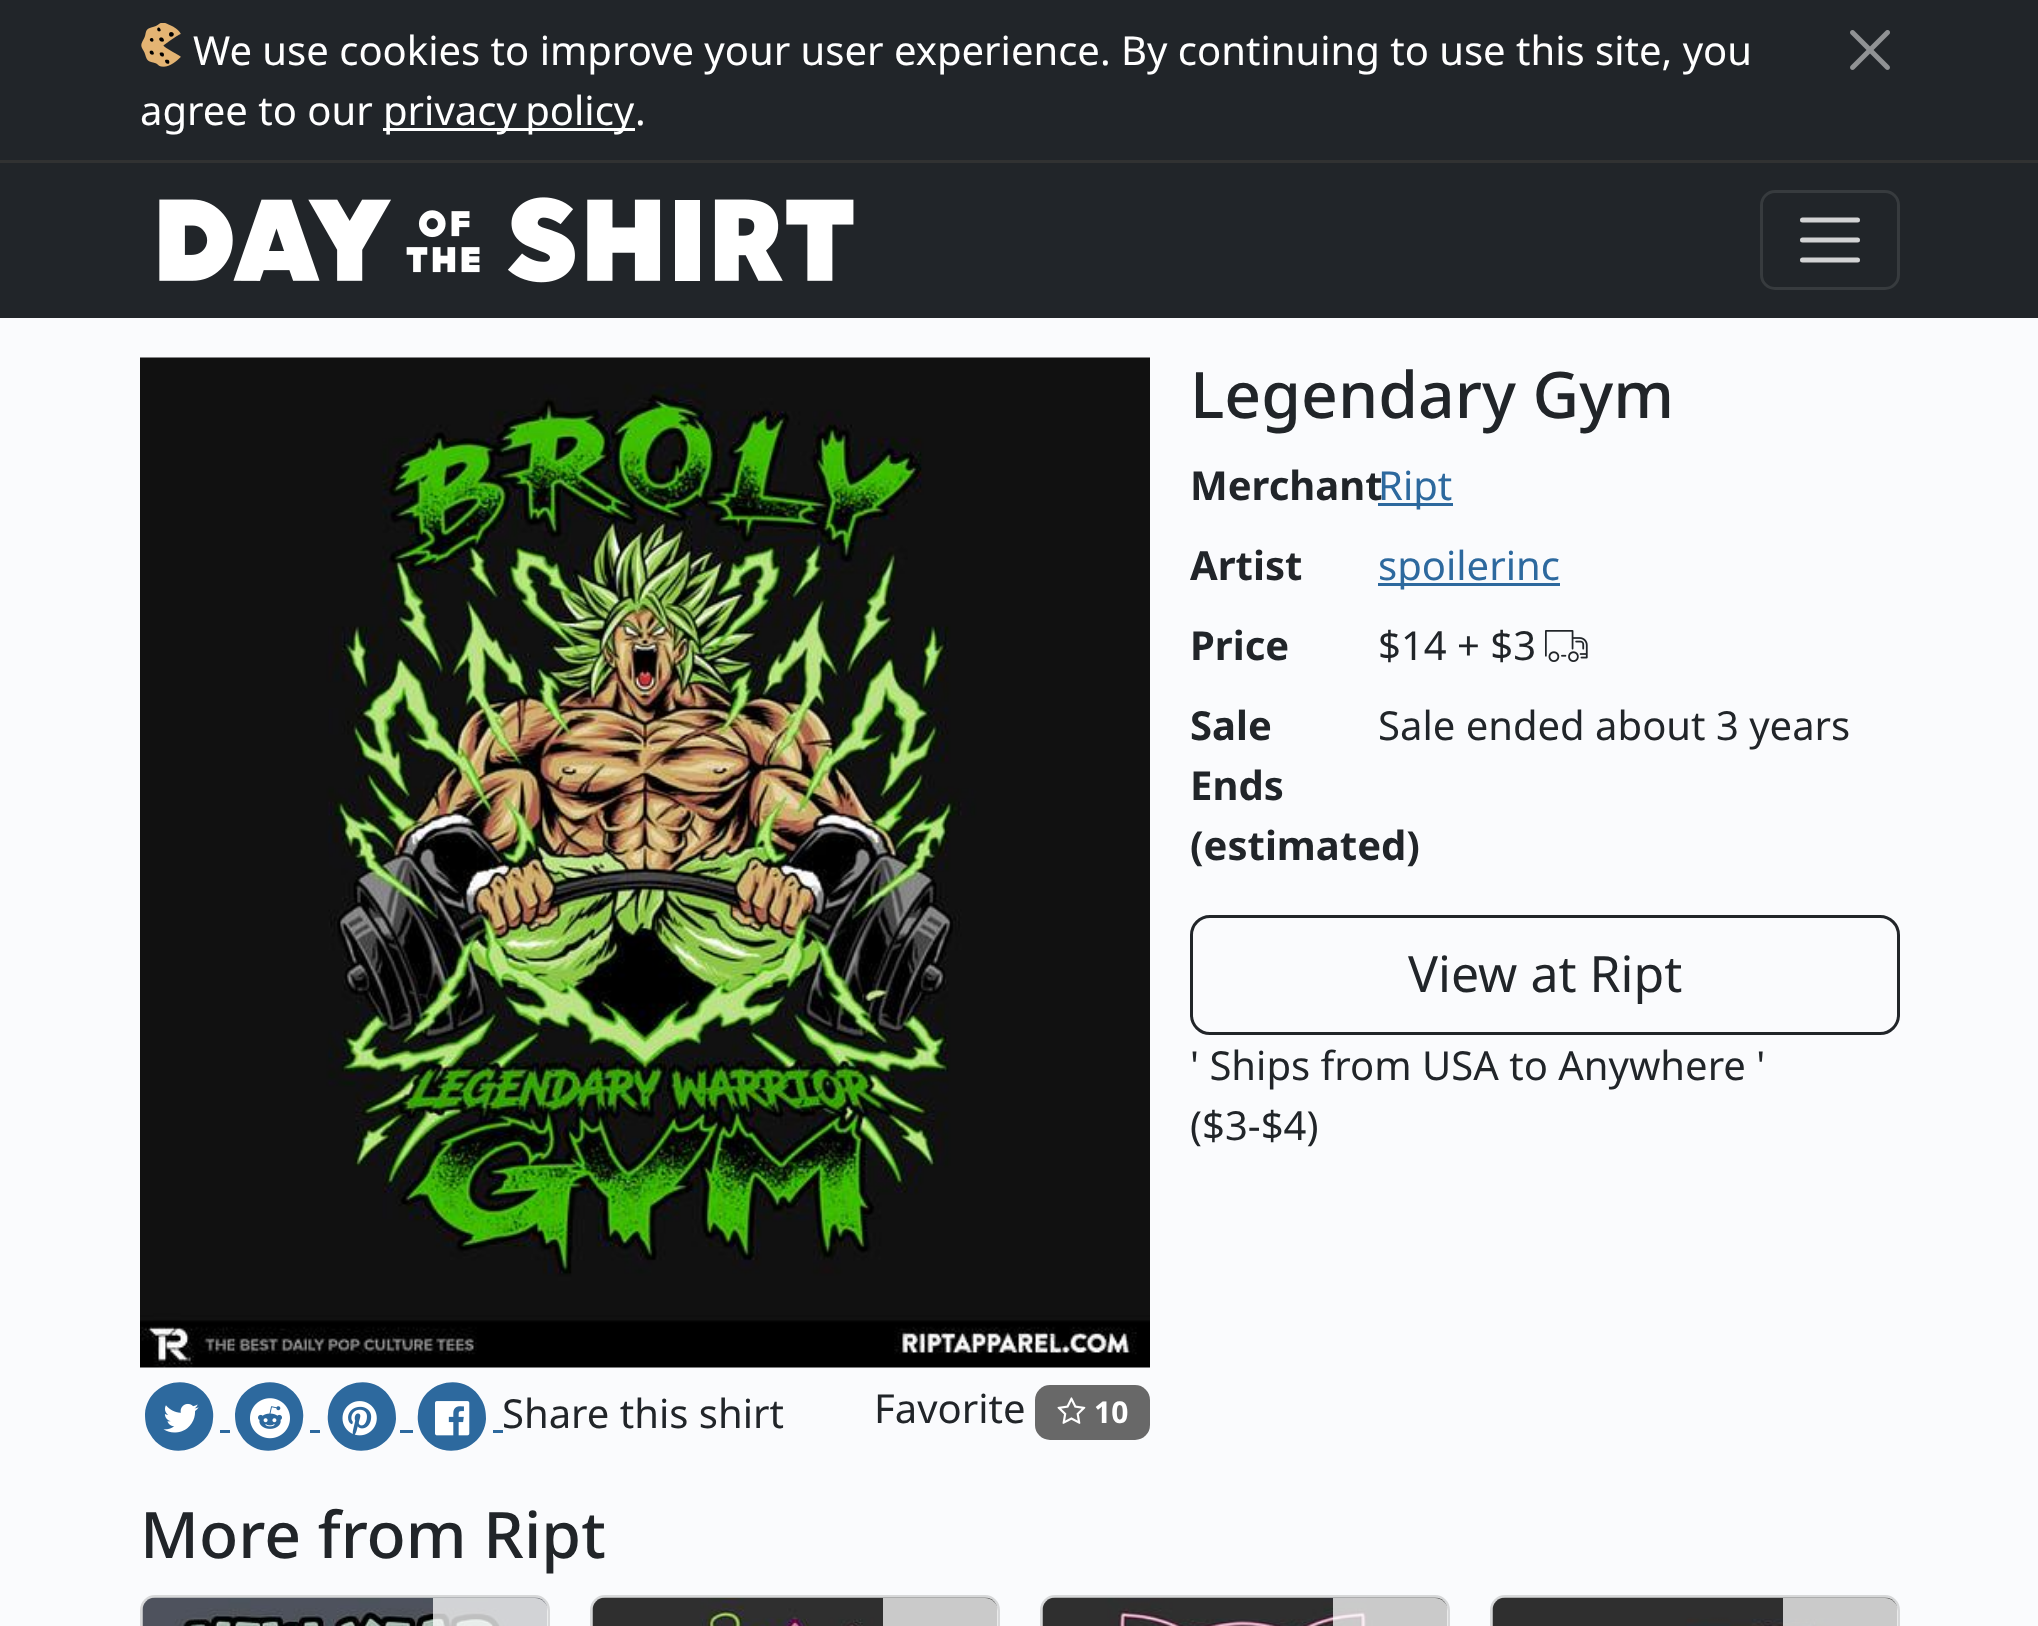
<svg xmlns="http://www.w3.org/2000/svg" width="2038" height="1626">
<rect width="100%" height="100%" fill="#fafbfd"/>
<rect width="2038" height="160" fill="#212529"/>
<rect y="160" width="2038" height="3" fill="#313232"/>
<image x="141" y="23" width="40" height="44" href="media/1.png"/>
<text x="193" y="65" style="font-family:Noto Sans;font-size:40px;fill:#fff">We use cookies to improve your user experience. By continuing to use this site, you</text>
<text x="140" y="125" style="font-family:Noto Sans;font-size:40px;fill:#fff">agree to our</text>
<rect x="383" y="128" width="252" height="3" fill="#fff"/>
<text x="383" y="125" word-spacing="-2" style="font-family:Noto Sans;font-size:40px;fill:#fff">privacy policy</text>
<text x="635" y="125" style="font-family:Noto Sans;font-size:40px;fill:#fff">.</text>
<image x="1850" y="30" width="40" height="40" href="media/2.png"/>
<rect y="163" width="2038" height="155" fill="#212529"/>
<image x="159" y="197" width="695" height="86" href="media/3.png"/>
<rect x="1761.5" y="191.5" width="137" height="97" rx="13.5" fill="none" stroke="#373b3e" stroke-width="3"/>
<path d="M1802.5 220h55m-55 20h55m-55 20h55" fill="none" stroke="#d3d3d4" stroke-width="5" stroke-linecap="round"/>
<text x="1190" y="418" style="font-family:Noto Sans;font-size:64.25px;font-weight:500;fill:#212529">Legendary Gym</text>
<text x="1190" y="500" style="font-family:Noto Sans;font-size:40px;font-weight:bold;fill:#212529">Merchant</text>
<rect x="1378" y="503" width="75" height="3" fill="#2d699e"/>
<text x="1378" y="500" style="font-family:Noto Sans;font-size:40px;fill:#2d699e">Ript</text>
<text x="1190" y="580" style="font-family:Noto Sans;font-size:40px;font-weight:bold;fill:#212529">Artist</text>
<rect x="1378" y="583" width="182" height="3" fill="#2d699e"/>
<text x="1378" y="580" style="font-family:Noto Sans;font-size:40px;fill:#2d699e">spoilerinc</text>
<text x="1190" y="660" style="font-family:Noto Sans;font-size:40px;font-weight:bold;fill:#212529">Price</text>
<text x="1378" y="660" style="font-family:Noto Sans;font-size:40px;fill:#212529">$14 + $3</text>
<image x="1545" y="630" width="43" height="32" href="media/4.png"/>
<text x="1190" y="740" style="font-family:Noto Sans;font-size:40px;font-weight:bold;fill:#212529">Sale</text>
<text x="1190" y="800" style="font-family:Noto Sans;font-size:40px;font-weight:bold;fill:#212529">Ends</text>
<text x="1190" y="860" style="font-family:Noto Sans;font-size:40px;font-weight:bold;fill:#212529">(estimated)</text>
<text x="1378" y="740" style="font-family:Noto Sans;font-size:40px;fill:#212529">Sale ended about 3 years</text>
<rect x="1191.5" y="916.5" width="707" height="117" rx="18.5" fill="none" stroke="#212529" stroke-width="3"/>
<text x="1408" y="992" style="font-family:Noto Sans;font-size:50px;fill:#212529">View at Ript</text>
<text x="1190" y="1080" style="font-family:Noto Sans;font-size:40px;fill:#212529">' Ships from USA to Anywhere '</text>
<text x="1190" y="1140" style="font-family:Noto Sans;font-size:40px;fill:#212529">($3-$4)</text>
<image x="140" y="357" width="1010" height="1011" href="media/5.png"/>
<path d="M209 1399c3 6 5 13 4 20c-2 33-47 44-63 15c-4-6-5-13-5-20c2-33 47-44 64-15z" fill="#2d699e"/>
<image x="163" y="1403" width="36" height="30" href="media/6.png"/>
<rect x="220" y="1430" width="10" height="3" fill="#2d699e"/>
<path d="M299 1399c3 6 5 13 4 20c-2 33-47 44-63 15c-4-6-5-13-5-20c2-33 47-44 64-15z" fill="#2d699e"/>
<image x="250" y="1398" width="40" height="41" href="media/7.png"/>
<rect x="310" y="1430" width="10" height="3" fill="#2d699e"/>
<path d="M391 1399c4 6 5 13 5 20c-2 33-47 44-64 15c-3-6-5-13-4-20c2-33 47-44 63-15z" fill="#2d699e"/>
<image x="342" y="1401" width="35" height="35" href="media/8.png"/>
<rect x="400" y="1430" width="13" height="3" fill="#2d699e"/>
<path d="M481 1399c4 6 5 13 5 20c-2 33-47 44-64 15c-3-6-5-13-4-20c2-33 47-44 63-15z" fill="#2d699e"/>
<image x="435" y="1401" width="35" height="35" href="media/9.png"/>
<rect x="493" y="1430" width="10" height="3" fill="#2d699e"/>
<text x="502" y="1428" style="font-family:Noto Sans;font-size:40px;fill:#212529">Share this shirt</text>
<text x="874" y="1423" style="font-family:Noto Sans;font-size:40px;fill:#212529">Favorite</text>
<rect x="1035" y="1385" width="115" height="55" rx="15" fill="#686868"/>
<image x="1057" y="1397" width="29" height="27" href="media/10.png"/>
<text x="1094" y="1423" style="font-family:Noto Sans;font-size:30px;font-weight:bold;fill:#fff">10</text>
<text x="140" y="1558" style="font-family:Noto Sans;font-size:64.25px;font-weight:500;fill:#212529">More from Ript</text>
<rect x="141.5" y="1596.5" width="407" height="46" rx="13.5" fill="none" stroke="#d7d8d9" stroke-width="3"/>
<image x="142" y="1597" width="406" height="29" href="media/11.png"/>
<path d="M433 1598h102c7 0 13 6 13 13v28h-115z" fill="#ffffffbf"/>
<rect x="591.5" y="1596.5" width="407" height="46" rx="13.5" fill="none" stroke="#d7d8d9" stroke-width="3"/>
<image x="592" y="1597" width="406" height="29" href="media/12.png"/>
<path d="M883 1598h102c7 0 13 6 13 13v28h-115z" fill="#ffffffbf"/>
<rect x="1041.5" y="1596.5" width="407" height="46" rx="13.5" fill="none" stroke="#d7d8d9" stroke-width="3"/>
<image x="1042" y="1597" width="406" height="29" href="media/13.png"/>
<path d="M1333 1598h102c7 0 13 6 13 13v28h-115z" fill="#ffffffbf"/>
<rect x="1491.5" y="1596.5" width="407" height="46" rx="13.5" fill="none" stroke="#d7d8d9" stroke-width="3"/>
<image x="1492" y="1597" width="406" height="29" href="media/14.png"/>
<path d="M1783 1598h102c7 0 13 6 13 13v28h-115z" fill="#ffffffbf"/>
</svg>
